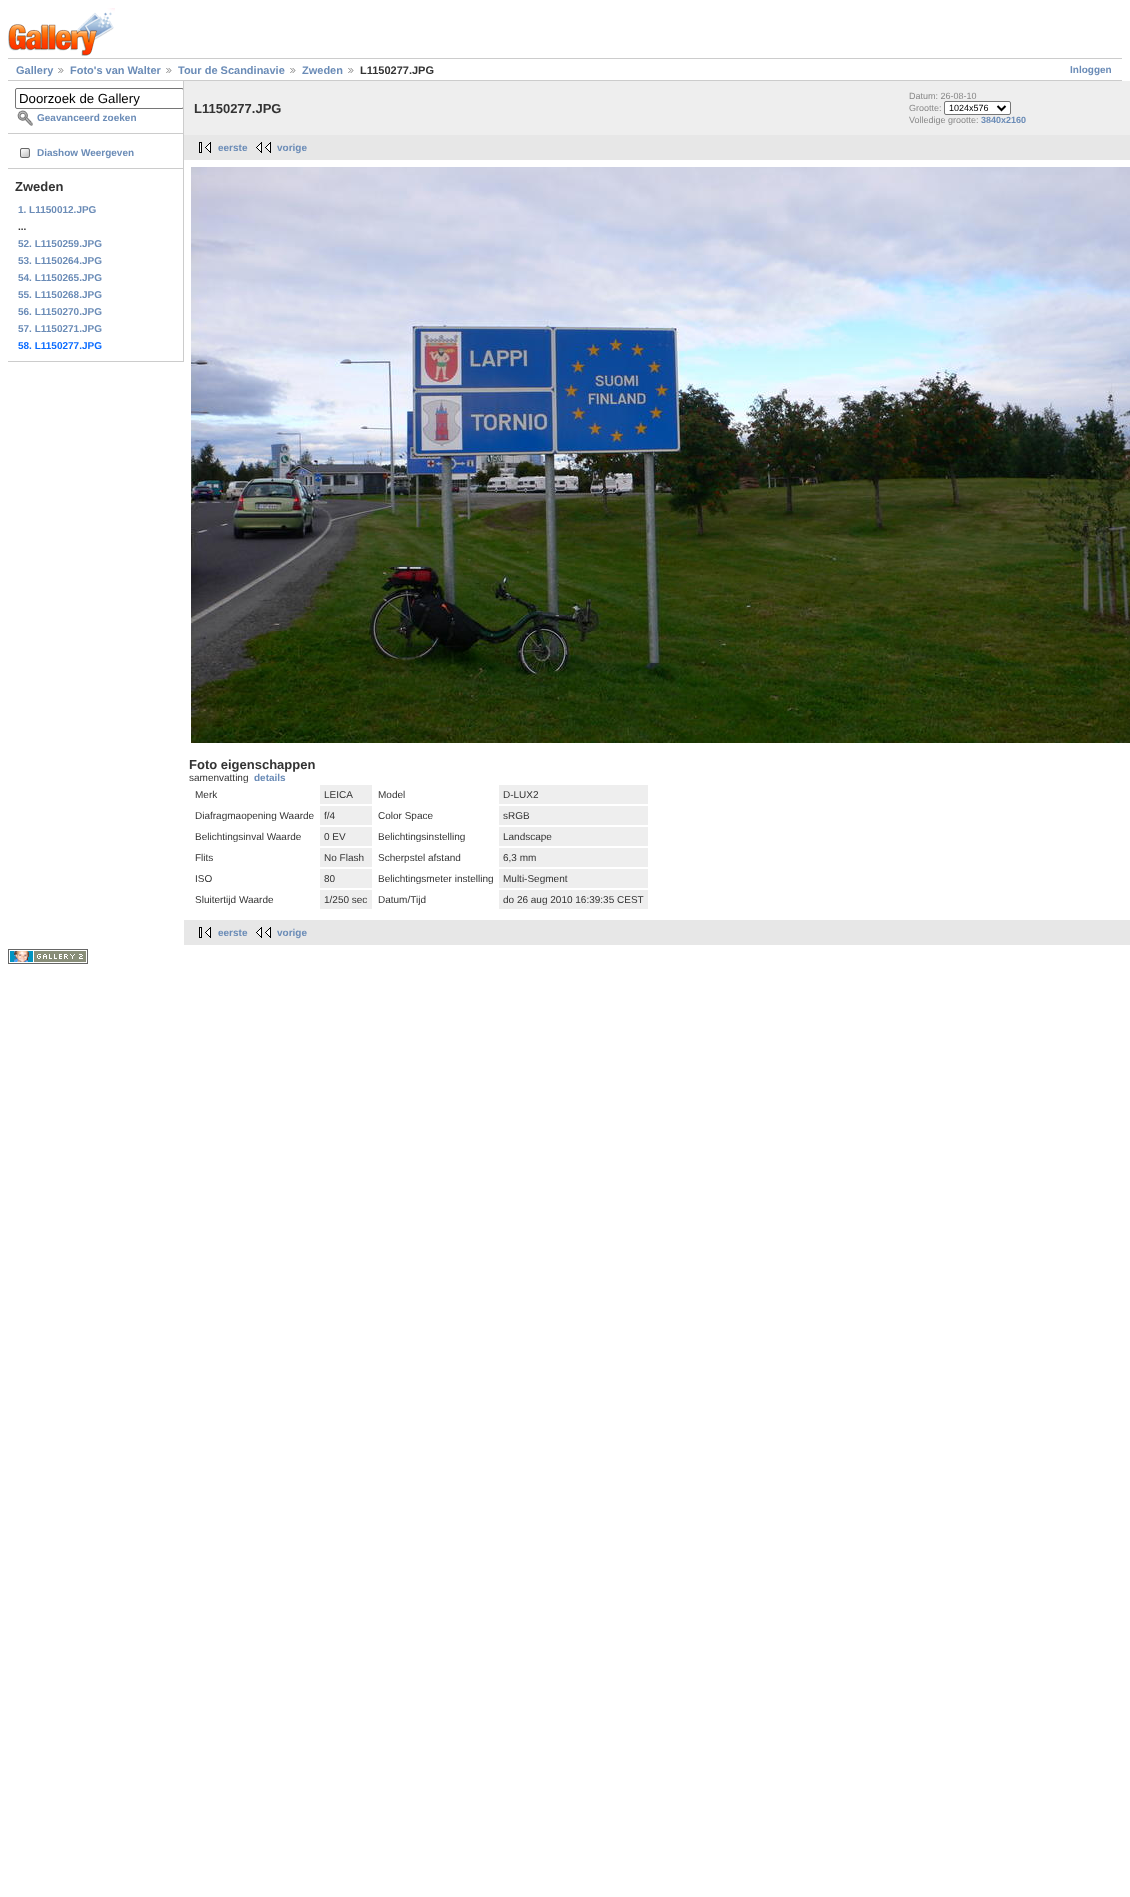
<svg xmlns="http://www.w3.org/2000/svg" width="1130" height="1897">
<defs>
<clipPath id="clip1"><rect x="8" y="81" width="175" height="281"/></clipPath>
</defs>
<rect width="100%" height="100%" fill="#fff"/>
<image x="8" y="8" width="107" height="48" href="media/1.png"/>
<rect x="8" y="58" width="1114" height="1" fill="#ccc"/>
<rect x="8" y="80" width="1114" height="1" fill="#ccc"/>
<text x="16" y="74" style="font-family:Liberation Sans;font-size:11px;font-weight:bold;fill:#6b8cb7">Gallery</text>
<image x="58" y="68" width="6" height="5" href="media/2.png"/>
<text x="70" y="74" style="font-family:Liberation Sans;font-size:11px;font-weight:bold;fill:#6b8cb7">Foto's van Walter</text>
<image x="166" y="68" width="6" height="5" href="media/2.png"/>
<text x="178" y="74" style="font-family:Liberation Sans;font-size:11px;font-weight:bold;fill:#6b8cb7">Tour de Scandinavie</text>
<image x="290" y="68" width="6" height="5" href="media/2.png"/>
<text x="302" y="74" style="font-family:Liberation Sans;font-size:11px;font-weight:bold;fill:#6b8cb7">Zweden</text>
<image x="348" y="68" width="6" height="5" href="media/2.png"/>
<text x="360" y="74" style="font-family:Liberation Sans;font-size:11px;font-weight:bold;fill:#333">L1150277.JPG</text>
<text x="1070" y="73" style="font-family:Liberation Sans;font-size:10px;font-weight:bold;fill:#6b8cb7">Inloggen</text>
<rect x="183" y="81" width="1" height="281" fill="#ccc"/>
<rect x="8" y="133" width="175" height="1" fill="#ccc"/>
<g clip-path="url(#clip1)">
<rect x="15.5" y="88.5" width="168" height="20" rx="1.5" fill="none" stroke="#767676"/>
</g>
<text x="19" y="103" style="font-family:Liberation Sans;font-size:13.25px;fill:#000">Doorzoek de Gallery</text>
<image x="17" y="110" width="16" height="16" href="media/3.png"/>
<text x="37" y="121" style="font-family:Liberation Sans;font-size:10px;font-weight:bold;fill:#6b8cb7">Geavanceerd zoeken</text>
<rect x="8" y="168" width="175" height="1" fill="#ccc"/>
<image x="20" y="148" width="10" height="10" href="media/4.png"/>
<text x="37" y="156" style="font-family:Liberation Sans;font-size:10px;font-weight:bold;fill:#6b8cb7">Diashow Weergeven</text>
<rect x="8" y="361" width="175" height="1" fill="#ccc"/>
<text x="15" y="191" style="font-family:Liberation Sans;font-size:13px;font-weight:bold;fill:#333">Zweden</text>
<text x="18" y="213" style="font-family:Liberation Sans;font-size:10px;font-weight:bold;fill:#6b8cb7">1. L1150012.JPG</text>
<text x="18" y="230" style="font-family:Liberation Sans;font-size:10px;font-weight:bold;fill:#333">...</text>
<text x="18" y="247" style="font-family:Liberation Sans;font-size:10px;font-weight:bold;fill:#6b8cb7">52. L1150259.JPG</text>
<text x="18" y="264" style="font-family:Liberation Sans;font-size:10px;font-weight:bold;fill:#6b8cb7">53. L1150264.JPG</text>
<text x="18" y="281" style="font-family:Liberation Sans;font-size:10px;font-weight:bold;fill:#6b8cb7">54. L1150265.JPG</text>
<text x="18" y="298" style="font-family:Liberation Sans;font-size:10px;font-weight:bold;fill:#6b8cb7">55. L1150268.JPG</text>
<text x="18" y="315" style="font-family:Liberation Sans;font-size:10px;font-weight:bold;fill:#6b8cb7">56. L1150270.JPG</text>
<text x="18" y="332" style="font-family:Liberation Sans;font-size:10px;font-weight:bold;fill:#6b8cb7">57. L1150271.JPG</text>
<text x="18" y="349" style="font-family:Liberation Sans;font-size:10px;font-weight:bold;fill:#0b6cff">58. L1150277.JPG</text>
<rect x="184" y="81" width="946" height="54" fill="#eee"/>
<text x="194" y="113" style="font-family:Liberation Sans;font-size:13px;font-weight:bold;fill:#333">L1150277.JPG</text>
<text x="909" y="99" style="font-family:Liberation Sans;font-size:9px;fill:#888">Datum: 26-08-10</text>
<text x="909" y="111" style="font-family:Liberation Sans;font-size:9px;fill:#888">Grootte:</text>
<rect x="944.5" y="101.5" width="66" height="13" rx="1.5" fill="#fff" stroke="#767676"/>
<path d="M997.5 106l4 4l4-4" fill="none" stroke="#000" stroke-width="2"/>
<text x="949" y="111" style="font-family:Liberation Sans;font-size:9px;fill:#000">1024x576</text>
<text x="909" y="123" style="font-family:Liberation Sans;font-size:9px;fill:#888">Volledige grootte:</text>
<text x="981" y="123" style="font-family:Liberation Sans;font-size:9px;font-weight:bold;fill:#6b8cb7">3840x2160</text>
<rect x="184" y="135" width="946" height="25" fill="#e7e7e7"/>
<image x="199" y="142" width="12" height="11" href="media/5.png"/>
<text x="218" y="151" style="font-family:Liberation Sans;font-size:10px;font-weight:bold;fill:#6b8cb7">eerste</text>
<image x="256" y="142" width="15" height="11" href="media/6.png"/>
<text x="277" y="151" style="font-family:Liberation Sans;font-size:10px;font-weight:bold;fill:#6b8cb7">vorige</text>
<image x="191" y="167" width="939" height="576" href="media/7.png"/>
<text x="189" y="769" style="font-family:Liberation Sans;font-size:13px;font-weight:bold;fill:#333">Foto eigenschappen</text>
<text x="189" y="781" style="font-family:Liberation Sans;font-size:10px;fill:#333">samenvatting</text>
<text x="254" y="781" style="font-family:Liberation Sans;font-size:10px;font-weight:bold;fill:#6b8cb7">details</text>
<text x="195" y="798" style="font-family:Liberation Sans;font-size:10px;fill:#333">Merk</text>
<rect x="320" y="785" width="52" height="19" fill="#eee"/>
<text x="324" y="798" style="font-family:Liberation Sans;font-size:10px;fill:#333">LEICA</text>
<text x="378" y="798" style="font-family:Liberation Sans;font-size:10px;fill:#333">Model</text>
<rect x="499" y="785" width="149" height="19" fill="#eee"/>
<text x="503" y="798" style="font-family:Liberation Sans;font-size:10px;fill:#333">D-LUX2</text>
<text x="195" y="819" style="font-family:Liberation Sans;font-size:10px;fill:#333">Diafragmaopening Waarde</text>
<rect x="320" y="806" width="52" height="19" fill="#eee"/>
<text x="324" y="819" style="font-family:Liberation Sans;font-size:10px;fill:#333">f/4</text>
<text x="378" y="819" style="font-family:Liberation Sans;font-size:10px;fill:#333">Color Space</text>
<rect x="499" y="806" width="149" height="19" fill="#eee"/>
<text x="503" y="819" style="font-family:Liberation Sans;font-size:10px;fill:#333">sRGB</text>
<text x="195" y="840" style="font-family:Liberation Sans;font-size:10px;fill:#333">Belichtingsinval Waarde</text>
<rect x="320" y="827" width="52" height="19" fill="#eee"/>
<text x="324" y="840" style="font-family:Liberation Sans;font-size:10px;fill:#333">0 EV</text>
<text x="378" y="840" style="font-family:Liberation Sans;font-size:10px;fill:#333">Belichtingsinstelling</text>
<rect x="499" y="827" width="149" height="19" fill="#eee"/>
<text x="503" y="840" style="font-family:Liberation Sans;font-size:10px;fill:#333">Landscape</text>
<text x="195" y="861" style="font-family:Liberation Sans;font-size:10px;fill:#333">Flits</text>
<rect x="320" y="848" width="52" height="19" fill="#eee"/>
<text x="324" y="861" style="font-family:Liberation Sans;font-size:10px;fill:#333">No Flash</text>
<text x="378" y="861" style="font-family:Liberation Sans;font-size:10px;fill:#333">Scherpstel afstand</text>
<rect x="499" y="848" width="149" height="19" fill="#eee"/>
<text x="503" y="861" style="font-family:Liberation Sans;font-size:10px;fill:#333">6,3 mm</text>
<text x="195" y="882" style="font-family:Liberation Sans;font-size:10px;fill:#333">ISO</text>
<rect x="320" y="869" width="52" height="19" fill="#eee"/>
<text x="324" y="882" style="font-family:Liberation Sans;font-size:10px;fill:#333">80</text>
<text x="378" y="882" style="font-family:Liberation Sans;font-size:10px;fill:#333">Belichtingsmeter instelling</text>
<rect x="499" y="869" width="149" height="19" fill="#eee"/>
<text x="503" y="882" style="font-family:Liberation Sans;font-size:10px;fill:#333">Multi-Segment</text>
<text x="195" y="903" style="font-family:Liberation Sans;font-size:10px;fill:#333">Sluitertijd Waarde</text>
<rect x="320" y="890" width="52" height="19" fill="#eee"/>
<text x="324" y="903" style="font-family:Liberation Sans;font-size:10px;fill:#333">1/250 sec</text>
<text x="378" y="903" style="font-family:Liberation Sans;font-size:10px;fill:#333">Datum/Tijd</text>
<rect x="499" y="890" width="149" height="19" fill="#eee"/>
<text x="503" y="903" style="font-family:Liberation Sans;font-size:10px;fill:#333">do 26 aug 2010 16:39:35 CEST</text>
<rect x="184" y="920" width="946" height="25" fill="#e7e7e7"/>
<image x="199" y="927" width="12" height="11" href="media/5.png"/>
<text x="218" y="936" style="font-family:Liberation Sans;font-size:10px;font-weight:bold;fill:#6b8cb7">eerste</text>
<image x="256" y="927" width="15" height="11" href="media/6.png"/>
<text x="277" y="936" style="font-family:Liberation Sans;font-size:10px;font-weight:bold;fill:#6b8cb7">vorige</text>
<image x="8" y="949" width="80" height="15" href="media/8.png"/>
</svg>
